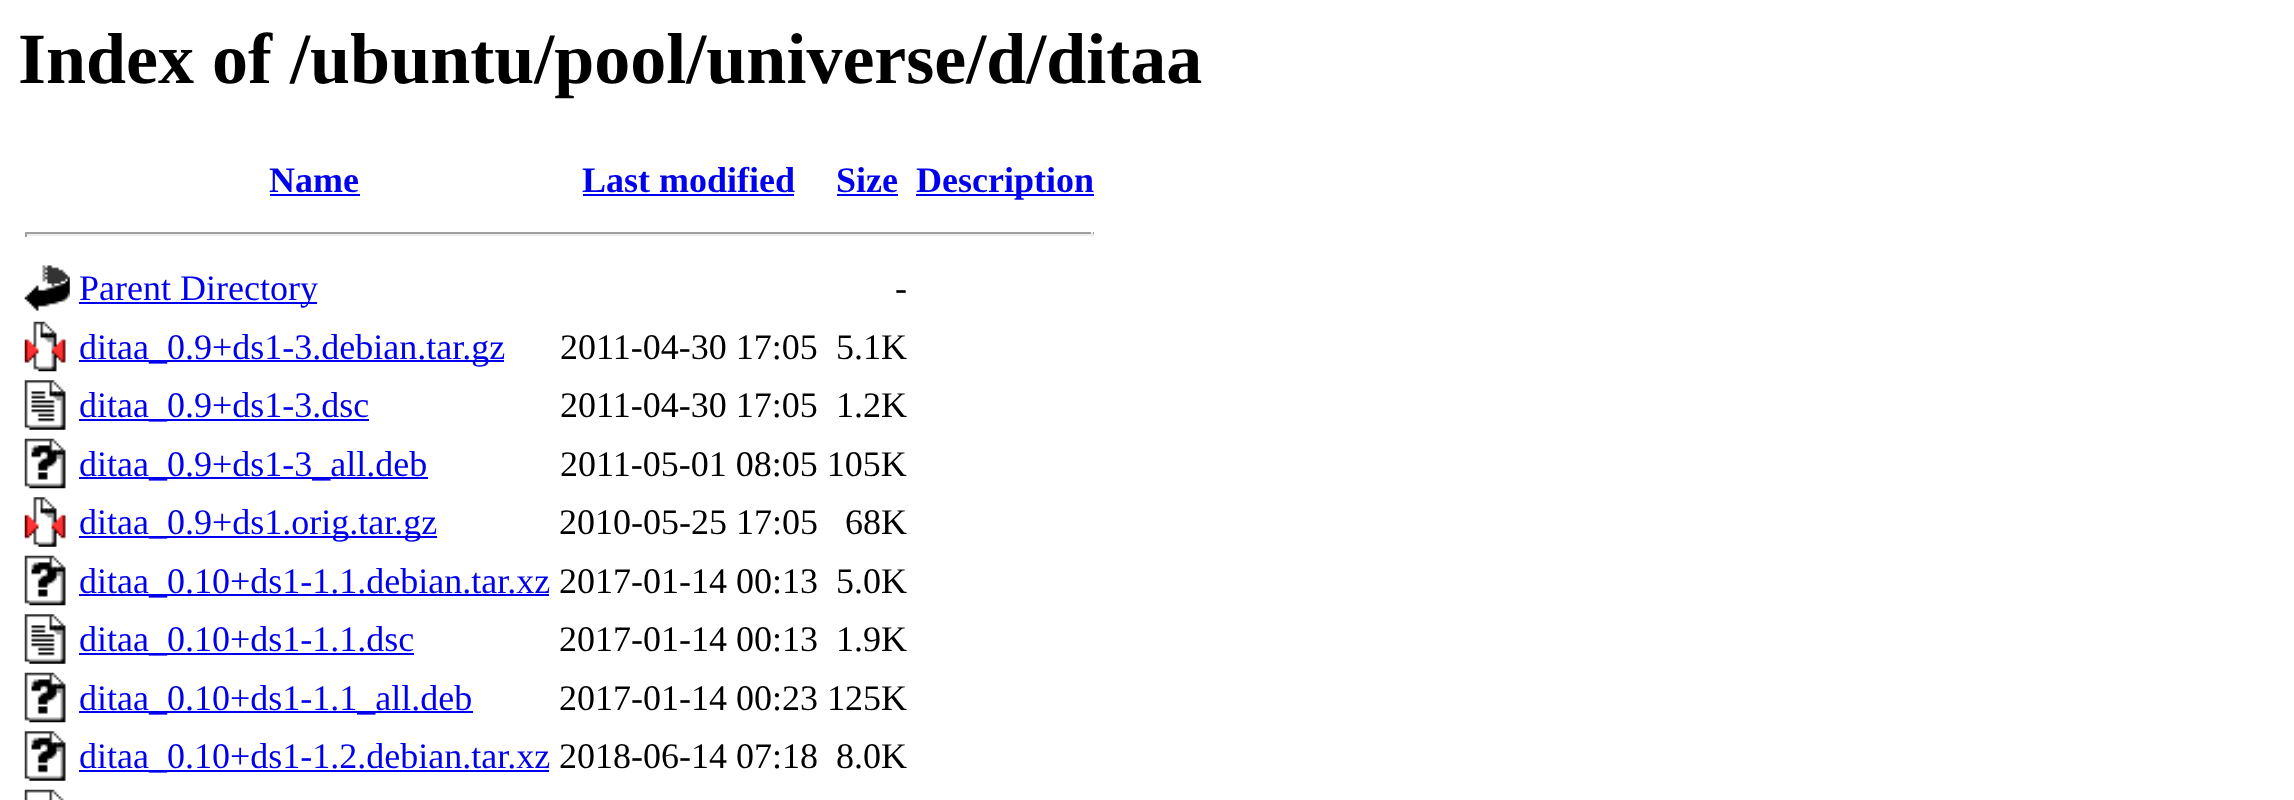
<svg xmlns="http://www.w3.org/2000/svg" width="2294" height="800">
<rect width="100%" height="100%" fill="#fff"/>
<text x="18" y="83" style="font-family:Liberation Serif;font-size:72px;font-weight:bold;fill:#000">Index of /ubuntu/pool/universe/d/ditaa</text>
<text x="269" y="192" style="font-family:Liberation Serif;font-size:36px;font-weight:bold;fill:#00e">Name</text>
<rect x="270" y="194" width="90" height="2" fill="#00e"/>
<text x="582" y="192" style="font-family:Liberation Serif;font-size:36px;font-weight:bold;fill:#00e">Last modified</text>
<rect x="583" y="194" width="211" height="2" fill="#00e"/>
<text x="836" y="192" style="font-family:Liberation Serif;font-size:36px;font-weight:bold;fill:#00e">Size</text>
<rect x="837" y="194" width="61" height="2" fill="#00e"/>
<rect x="916" y="194" width="178" height="2" fill="#00e"/>
<text x="916" y="192" style="font-family:Liberation Serif;font-size:36px;font-weight:bold;fill:#00e">Description</text>
<rect x="25" y="232" width="1069" height="2" fill="#9f9f9f"/>
<rect x="1091" y="232" width="2" height="5" fill="#eee"/>
<rect x="25" y="234" width="1069" height="2" fill="#eee"/>
<rect x="25" y="232" width="2" height="5" fill="#9f9f9f"/>
<image x="24" y="265" width="46" height="47" href="media/1.png"/>
<rect x="79" y="302" width="238" height="2" fill="#00e"/>
<text x="79" y="300" style="font-family:Liberation Serif;font-size:36px;fill:#00e">Parent Directory</text>
<text x="895" y="300" style="font-family:Liberation Serif;font-size:36px;fill:#000">-</text>
<image x="24" y="321" width="42" height="51" href="media/2.png"/>
<rect x="79" y="360" width="425" height="2" fill="#00e"/>
<text x="79" y="359" style="font-family:Liberation Serif;font-size:36px;fill:#00e">ditaa_0.9+ds1-3.debian.tar.gz</text>
<text x="560" y="359" style="font-family:Liberation Serif;font-size:36px;fill:#000">2011-04-30 17:05</text>
<text x="836" y="359" style="font-family:Liberation Serif;font-size:36px;fill:#000">5.1K</text>
<image x="24" y="380" width="42" height="50" href="media/3.png"/>
<rect x="79" y="419" width="290" height="2" fill="#00e"/>
<text x="79" y="417" style="font-family:Liberation Serif;font-size:36px;fill:#00e">ditaa_0.9+ds1-3.dsc</text>
<text x="560" y="417" style="font-family:Liberation Serif;font-size:36px;fill:#000">2011-04-30 17:05</text>
<text x="836" y="417" style="font-family:Liberation Serif;font-size:36px;fill:#000">1.2K</text>
<image x="24" y="438" width="42" height="51" href="media/4.png"/>
<rect x="79" y="477" width="349" height="2" fill="#00e"/>
<text x="79" y="476" style="font-family:Liberation Serif;font-size:36px;fill:#00e">ditaa_0.9+ds1-3_all.deb</text>
<text x="560" y="476" style="font-family:Liberation Serif;font-size:36px;fill:#000">2011-05-01 08:05 105K</text>
<image x="24" y="497" width="42" height="50" href="media/5.png"/>
<rect x="79" y="536" width="358" height="2" fill="#00e"/>
<text x="79" y="534" style="font-family:Liberation Serif;font-size:36px;fill:#00e">ditaa_0.9+ds1.orig.tar.gz</text>
<text x="559" y="534" style="font-family:Liberation Serif;font-size:36px;fill:#000">2010-05-25 17:05</text>
<text x="845" y="534" style="font-family:Liberation Serif;font-size:36px;fill:#000">68K</text>
<image x="24" y="555" width="42" height="51" href="media/6.png"/>
<rect x="79" y="594" width="470" height="2" fill="#00e"/>
<text x="79" y="593" style="font-family:Liberation Serif;font-size:36px;fill:#00e">ditaa_0.10+ds1-1.1.debian.tar.xz</text>
<text x="559" y="593" style="font-family:Liberation Serif;font-size:36px;fill:#000">2017-01-14 00:13</text>
<text x="836" y="593" style="font-family:Liberation Serif;font-size:36px;fill:#000">5.0K</text>
<image x="24" y="614" width="42" height="50" href="media/3.png"/>
<rect x="79" y="653" width="335" height="2" fill="#00e"/>
<text x="79" y="651" style="font-family:Liberation Serif;font-size:36px;fill:#00e">ditaa_0.10+ds1-1.1.dsc</text>
<text x="559" y="651" style="font-family:Liberation Serif;font-size:36px;fill:#000">2017-01-14 00:13</text>
<text x="836" y="651" style="font-family:Liberation Serif;font-size:36px;fill:#000">1.9K</text>
<image x="24" y="672" width="42" height="51" href="media/4.png"/>
<rect x="79" y="711" width="394" height="2" fill="#00e"/>
<text x="79" y="710" style="font-family:Liberation Serif;font-size:36px;fill:#00e">ditaa_0.10+ds1-1.1_all.deb</text>
<text x="559" y="710" style="font-family:Liberation Serif;font-size:36px;fill:#000">2017-01-14 00:23 125K</text>
<image x="24" y="731" width="42" height="50" href="media/7.png"/>
<rect x="79" y="770" width="470" height="2" fill="#00e"/>
<text x="79" y="768" style="font-family:Liberation Serif;font-size:36px;fill:#00e">ditaa_0.10+ds1-1.2.debian.tar.xz</text>
<text x="559" y="768" style="font-family:Liberation Serif;font-size:36px;fill:#000">2018-06-14 07:18</text>
<text x="836" y="768" style="font-family:Liberation Serif;font-size:36px;fill:#000">8.0K</text>
<image x="24" y="789" width="40" height="11" href="media/8.png"/>
</svg>
